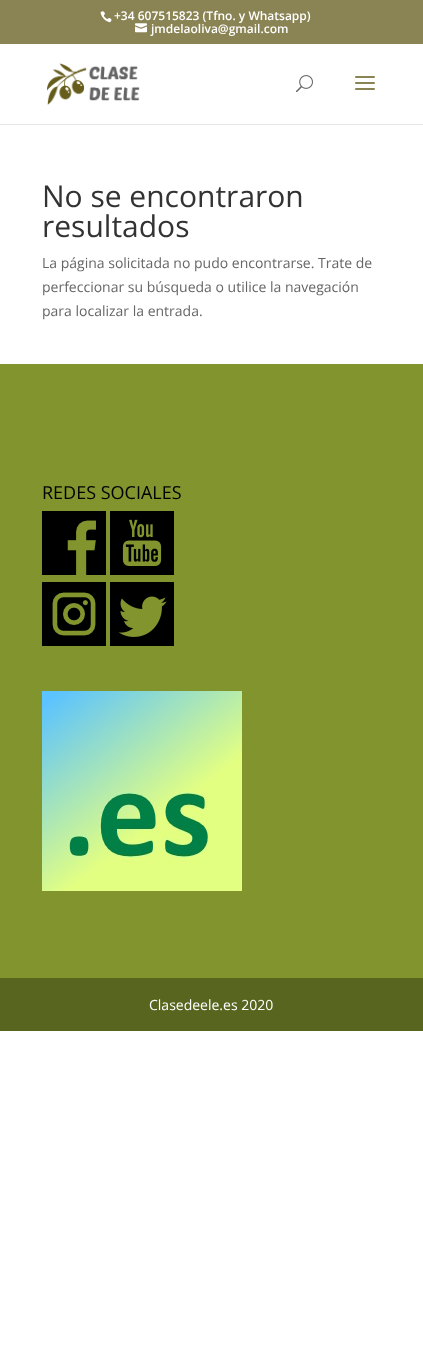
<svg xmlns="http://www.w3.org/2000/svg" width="423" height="1356">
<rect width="100%" height="100%" fill="#fff"/>
<rect width="423" height="44" fill="#8a8353"/>
<image x="100" y="11" width="12" height="12" href="media/1.png"/>
<text x="114" y="20" style="font-family:Open Sans;font-size:12px;font-weight:600;fill:#fff">+34 607515823 (Tfno. y Whatsapp)</text>
<image x="135" y="23" width="12" height="10" href="media/2.png"/>
<text x="151" y="33" style="font-family:Open Sans;font-size:12px;font-weight:600;fill:#fff">jmdelaoliva@gmail.com</text>
<rect y="124" width="423" height="1" fill="#e6e6e6"/>
<image x="47" y="63" width="93" height="42" href="media/3.png"/>
<image x="296" y="75" width="17" height="18" href="media/4.png"/>
<image x="355" y="76" width="20" height="14" href="media/5.png"/>
<text x="42" y="207" style="font-family:Open Sans;font-size:30px;fill:#333">No se encontraron</text>
<text x="42" y="237" style="font-family:Open Sans;font-size:30px;fill:#333">resultados</text>
<text x="42" y="268" style="font-family:Open Sans;font-size:14px;fill:#666">La página solicitada no pudo encontrarse. Trate de</text>
<text x="42" y="292" style="font-family:Open Sans;font-size:14px;fill:#666">perfeccionar su búsqueda o utilice la navegación</text>
<text x="42" y="316" style="font-family:Open Sans;font-size:14px;fill:#666">para localizar la entrada.</text>
<rect y="364" width="423" height="614" fill="#82942e"/>
<text x="42" y="499" style="font-family:Open Sans;font-size:18px;fill:#000">REDES SOCIALES</text>
<image x="42" y="511" width="64" height="64" href="media/6.png"/>
<image x="110" y="511" width="64" height="64" href="media/7.png"/>
<image x="42" y="582" width="64" height="64" href="media/8.png"/>
<image x="110" y="582" width="64" height="64" href="media/9.png"/>
<image x="42" y="691" width="200" height="200" href="media/10.png"/>
<rect y="978" width="423" height="53" fill="#58651f"/>
<text x="149" y="1010" style="font-family:Open Sans;font-size:14px;fill:#fff">Clasedeele.es 2020</text>
</svg>
